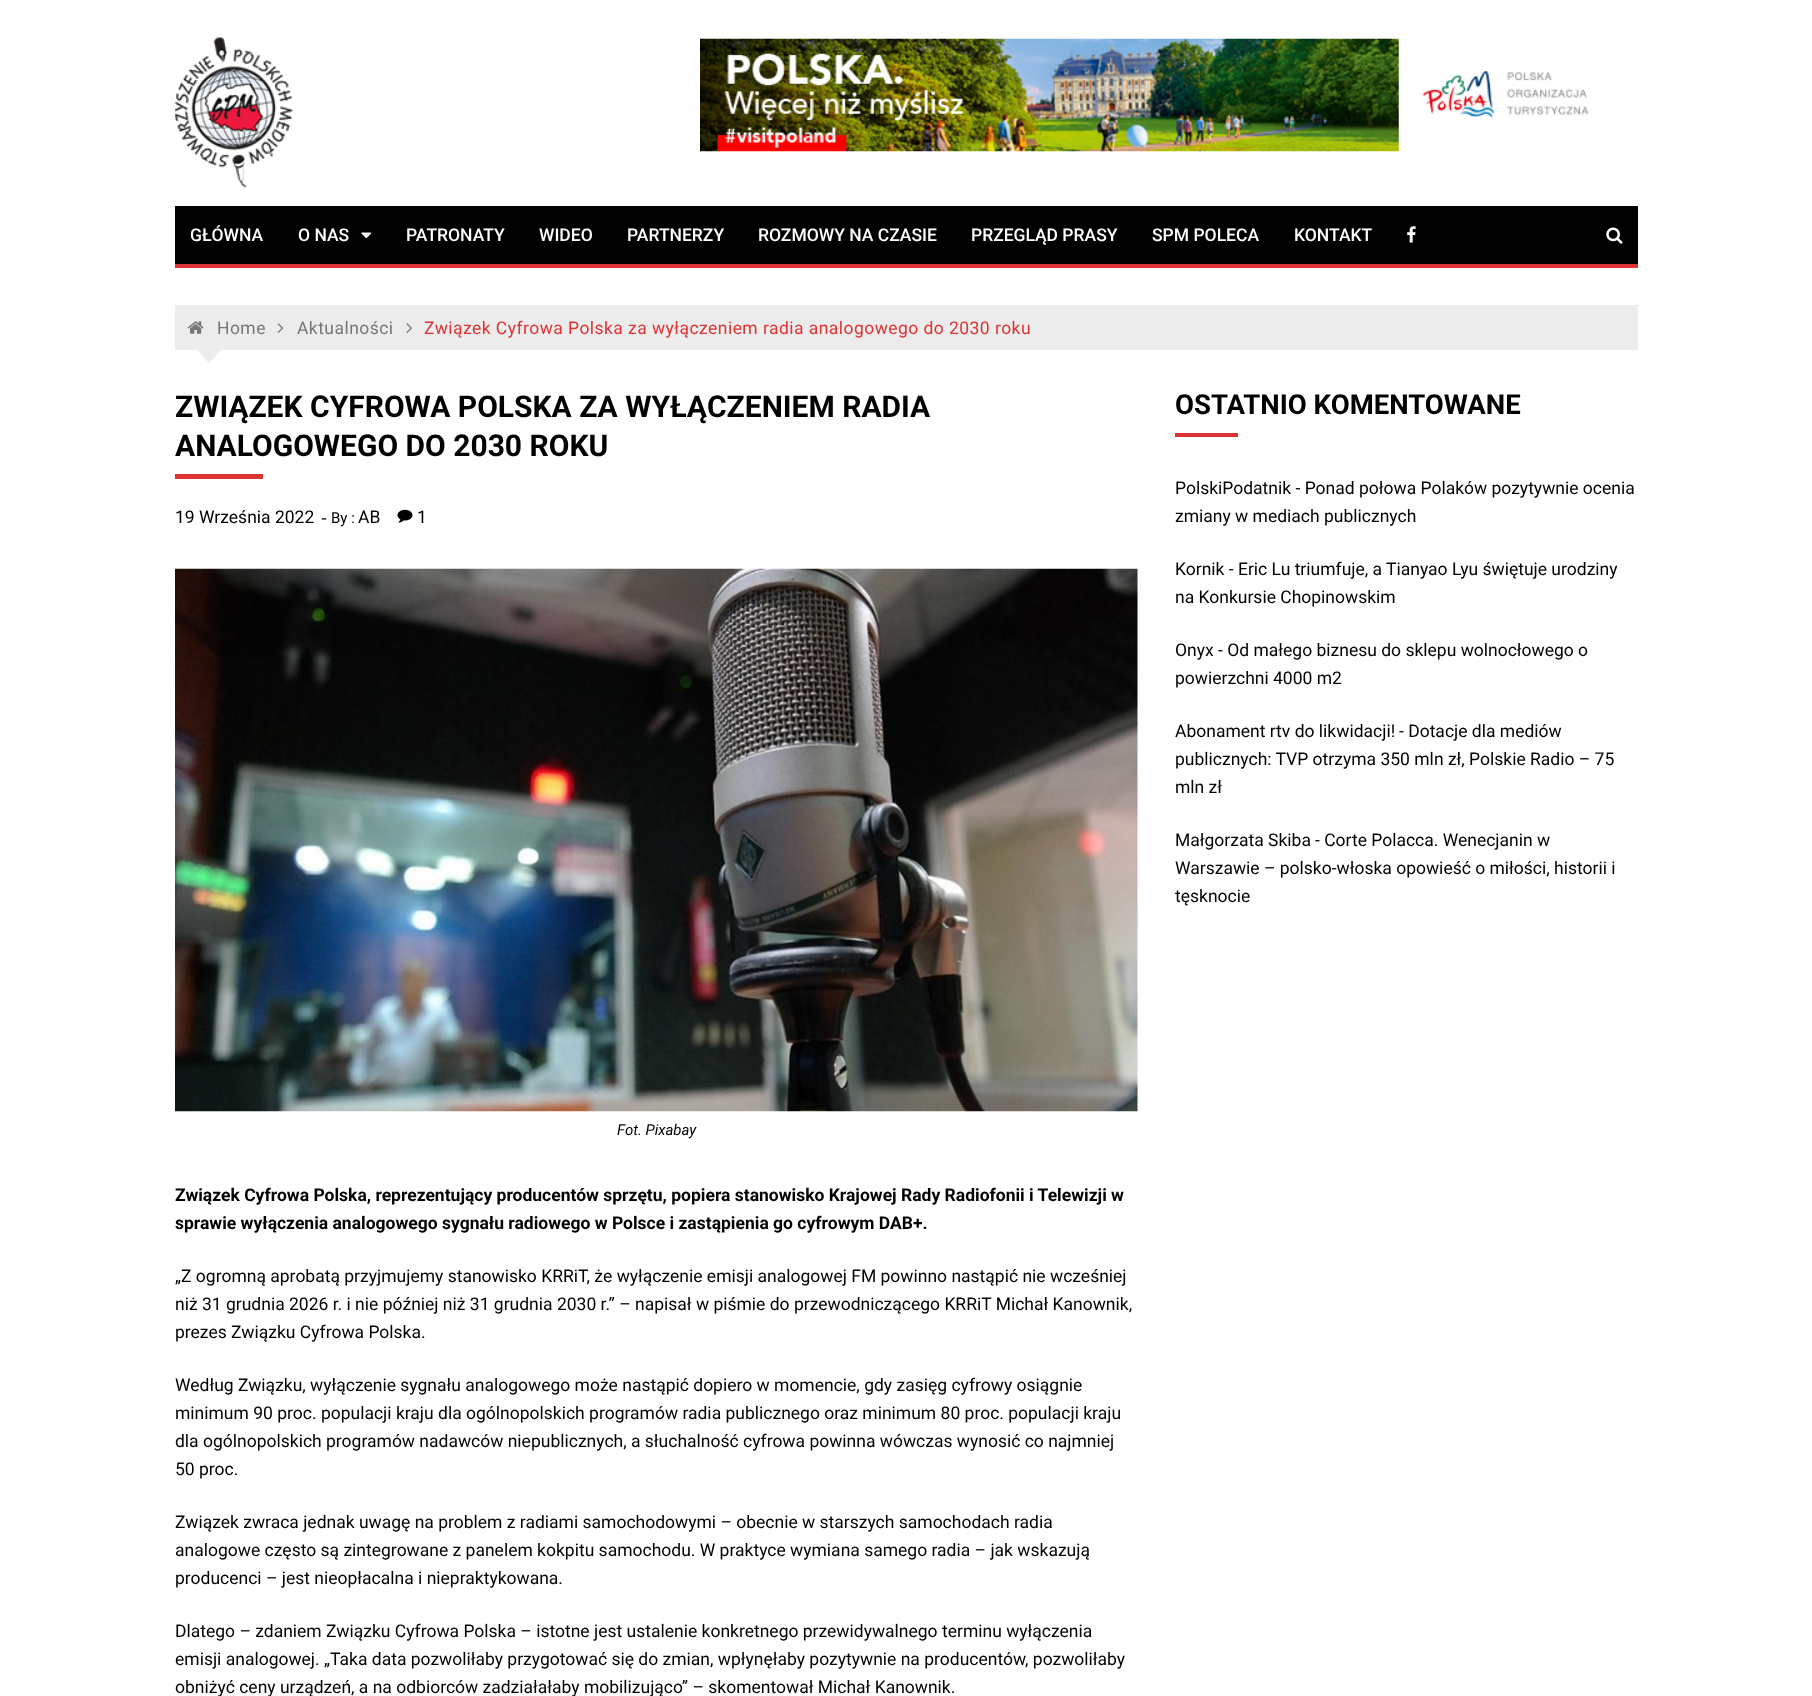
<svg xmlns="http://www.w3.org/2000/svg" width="1812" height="1696">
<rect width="100%" height="100%" fill="#fff"/>
<image x="175" y="37" width="118" height="151" href="media/1.png"/>
<image x="700" y="38" width="889" height="114" href="media/2.png"/>
<rect x="175" y="206" width="1463" height="58" fill="#000"/>
<rect x="175" y="264" width="1463" height="4" fill="#d33"/>
<text x="190" y="241" style="font-family:Roboto;font-size:17.5px;font-weight:500;fill:#fff">GŁÓWNA</text>
<text x="298" y="241" style="font-family:Roboto;font-size:17.5px;font-weight:500;fill:#fff">O NAS</text>
<image x="361" y="232" width="11" height="7" href="media/3.png"/>
<text x="406" y="241" style="font-family:Roboto;font-size:17.5px;font-weight:500;fill:#fff">PATRONATY</text>
<text x="539" y="241" style="font-family:Roboto;font-size:17.5px;font-weight:500;fill:#fff">WIDEO</text>
<text x="627" y="241" style="font-family:Roboto;font-size:17.5px;font-weight:500;fill:#fff">PARTNERZY</text>
<text x="758" y="241" style="font-family:Roboto;font-size:17.5px;font-weight:500;fill:#fff">ROZMOWY NA CZASIE</text>
<text x="971" y="241" style="font-family:Roboto;font-size:17.5px;font-weight:500;fill:#fff">PRZEGLĄD PRASY</text>
<text x="1152" y="241" style="font-family:Roboto;font-size:17.5px;font-weight:500;fill:#fff">SPM POLECA</text>
<text x="1294" y="241" style="font-family:Roboto;font-size:17.5px;font-weight:500;fill:#fff">KONTAKT</text>
<image x="1407" y="226" width="9" height="17" href="media/4.png"/>
<image x="1606" y="227" width="17" height="17" href="media/5.png"/>
<rect x="175" y="305" width="1463" height="45" fill="#ececec"/>
<image x="187" y="321" width="17" height="13" href="media/6.png"/>
<text x="217" y="334" style="font-family:Roboto;font-size:17.5px;letter-spacing:0.45px;fill:#777">Home</text>
<image x="277" y="323" width="7" height="10" href="media/7.png"/>
<text x="297" y="334" style="font-family:Roboto;font-size:17.5px;letter-spacing:0.45px;fill:#777">Aktualności</text>
<image x="406" y="323" width="6" height="10" href="media/8.png"/>
<text x="424" y="334" style="font-family:Roboto;font-size:17.5px;letter-spacing:0.45px;fill:#d33">Związek Cyfrowa Polska za wyłączeniem radia analogowego do 2030 roku</text>
<path d="M194 346.5h30l-15 16.5z" fill="#ececec"/>
<text x="175" y="417" style="font-family:Roboto;font-size:30px;font-weight:bold;fill:#010101">ZWIĄZEK CYFROWA POLSKA ZA WYŁĄCZENIEM RADIA</text>
<text x="175" y="456" style="font-family:Roboto;font-size:30px;font-weight:bold;fill:#010101">ANALOGOWEGO DO 2030 ROKU</text>
<rect x="175" y="474" width="88" height="5" fill="#d33"/>
<text x="175" y="523" style="font-family:Roboto;font-size:17.5px;fill:#010101">19 Września 2022</text>
<text x="321" y="523" style="font-family:Liberation Serif;font-size:17.5px;fill:#010101">-</text>
<text x="331" y="523" style="font-family:Roboto;font-size:15px;fill:#010101">By :</text>
<text x="358" y="523" style="font-family:Roboto;font-size:17.5px;fill:#010101">AB</text>
<image x="397" y="509" width="16" height="14" href="media/9.png"/>
<text x="417" y="523" style="font-family:Roboto;font-size:17.5px;fill:#010101">1</text>
<image x="175" y="568" width="963" height="544" href="media/10.png"/>
<text x="617" y="1135" style="font-family:Roboto;font-size:15px;font-style:italic;fill:#010101">Fot. Pixabay</text>
<text x="175" y="1201" style="font-family:Roboto;font-size:17.5px;font-weight:bold;fill:#010101">Związek Cyfrowa Polska, reprezentujący producentów sprzętu, popiera stanowisko Krajowej Rady Radiofonii i Telewizji w</text>
<text x="175" y="1229" style="font-family:Roboto;font-size:17.5px;font-weight:bold;fill:#010101">sprawie wyłączenia analogowego sygnału radiowego w Polsce i zastąpienia go cyfrowym DAB+.</text>
<text x="175" y="1282" style="font-family:Roboto;font-size:17.5px;fill:#010101">„Z ogromną aprobatą przyjmujemy stanowisko KRRiT, że wyłączenie emisji analogowej FM powinno nastąpić nie wcześniej</text>
<text x="175" y="1310" style="font-family:Roboto;font-size:17.5px;fill:#010101">niż 31 grudnia 2026 r. i nie później niż 31 grudnia 2030 r.” – napisał w piśmie do przewodniczącego KRRiT Michał Kanownik,</text>
<text x="175" y="1338" style="font-family:Roboto;font-size:17.5px;fill:#010101">prezes Związku Cyfrowa Polska.</text>
<text x="175" y="1391" style="font-family:Roboto;font-size:17.5px;fill:#010101">Według Związku, wyłączenie sygnału analogowego może nastąpić dopiero w momencie, gdy zasięg cyfrowy osiągnie</text>
<text x="175" y="1419" style="font-family:Roboto;font-size:17.5px;fill:#010101">minimum 90 proc. populacji kraju dla ogólnopolskich programów radia publicznego oraz minimum 80 proc. populacji kraju</text>
<text x="175" y="1447" style="font-family:Roboto;font-size:17.5px;fill:#010101">dla ogólnopolskich programów nadawców niepublicznych, a słuchalność cyfrowa powinna wówczas wynosić co najmniej</text>
<text x="175" y="1475" style="font-family:Roboto;font-size:17.5px;fill:#010101">50 proc.</text>
<text x="175" y="1528" style="font-family:Roboto;font-size:17.5px;fill:#010101">Związek zwraca jednak uwagę na problem z radiami samochodowymi – obecnie w starszych samochodach radia</text>
<text x="175" y="1556" style="font-family:Roboto;font-size:17.5px;fill:#010101">analogowe często są zintegrowane z panelem kokpitu samochodu. W praktyce wymiana samego radia – jak wskazują</text>
<text x="175" y="1584" style="font-family:Roboto;font-size:17.5px;fill:#010101">producenci – jest nieopłacalna i niepraktykowana.</text>
<text x="175" y="1637" style="font-family:Roboto;font-size:17.5px;fill:#010101">Dlatego – zdaniem Związku Cyfrowa Polska – istotne jest ustalenie konkretnego przewidywalnego terminu wyłączenia</text>
<text x="175" y="1665" style="font-family:Roboto;font-size:17.5px;fill:#010101">emisji analogowej. „Taka data pozwoliłaby przygotować się do zmian, wpłynęłaby pozytywnie na producentów, pozwoliłaby</text>
<text x="175" y="1693" style="font-family:Roboto;font-size:17.5px;fill:#010101">obniżyć ceny urządzeń, a na odbiorców zadziałałaby mobilizująco” – skomentował Michał Kanownik.</text>
<text x="1175" y="414" style="font-family:Roboto;font-size:27.5px;font-weight:bold;fill:#010101">OSTATNIO KOMENTOWANE</text>
<rect x="1175" y="433" width="63" height="4" fill="#d33"/>
<text x="1175" y="494" style="font-family:Roboto;font-size:17.5px;fill:#010101">PolskiPodatnik - Ponad połowa Polaków pozytywnie ocenia</text>
<text x="1175" y="522" style="font-family:Roboto;font-size:17.5px;fill:#010101">zmiany w mediach publicznych</text>
<text x="1175" y="575" style="font-family:Roboto;font-size:17.5px;fill:#010101">Kornik - Eric Lu triumfuje, a Tianyao Lyu świętuje urodziny</text>
<text x="1175" y="603" style="font-family:Roboto;font-size:17.5px;fill:#010101">na Konkursie Chopinowskim</text>
<text x="1175" y="656" style="font-family:Roboto;font-size:17.5px;fill:#010101">Onyx - Od małego biznesu do sklepu wolnocłowego o</text>
<text x="1175" y="684" style="font-family:Roboto;font-size:17.5px;fill:#010101">powierzchni 4000 m2</text>
<text x="1175" y="737" style="font-family:Roboto;font-size:17.5px;fill:#010101">Abonament rtv do likwidacji!</text>
<text x="1399" y="737" style="font-family:Roboto;font-size:17.5px;fill:#010101">- Dotacje dla mediów</text>
<text x="1175" y="765" style="font-family:Roboto;font-size:17.5px;fill:#010101">publicznych: TVP otrzyma 350 mln zł, Polskie Radio – 75</text>
<text x="1175" y="793" style="font-family:Roboto;font-size:17.5px;fill:#010101">mln zł</text>
<text x="1175" y="846" style="font-family:Roboto;font-size:17.5px;fill:#010101">Małgorzata Skiba</text>
<text x="1315" y="846" style="font-family:Roboto;font-size:17.5px;fill:#010101">- Corte Polacca. Wenecjanin w</text>
<text x="1175" y="874" style="font-family:Roboto;font-size:17.5px;fill:#010101">Warszawie – polsko-włoska opowieść o miłości, historii i</text>
<text x="1175" y="902" style="font-family:Roboto;font-size:17.5px;fill:#010101">tęsknocie</text>
</svg>
